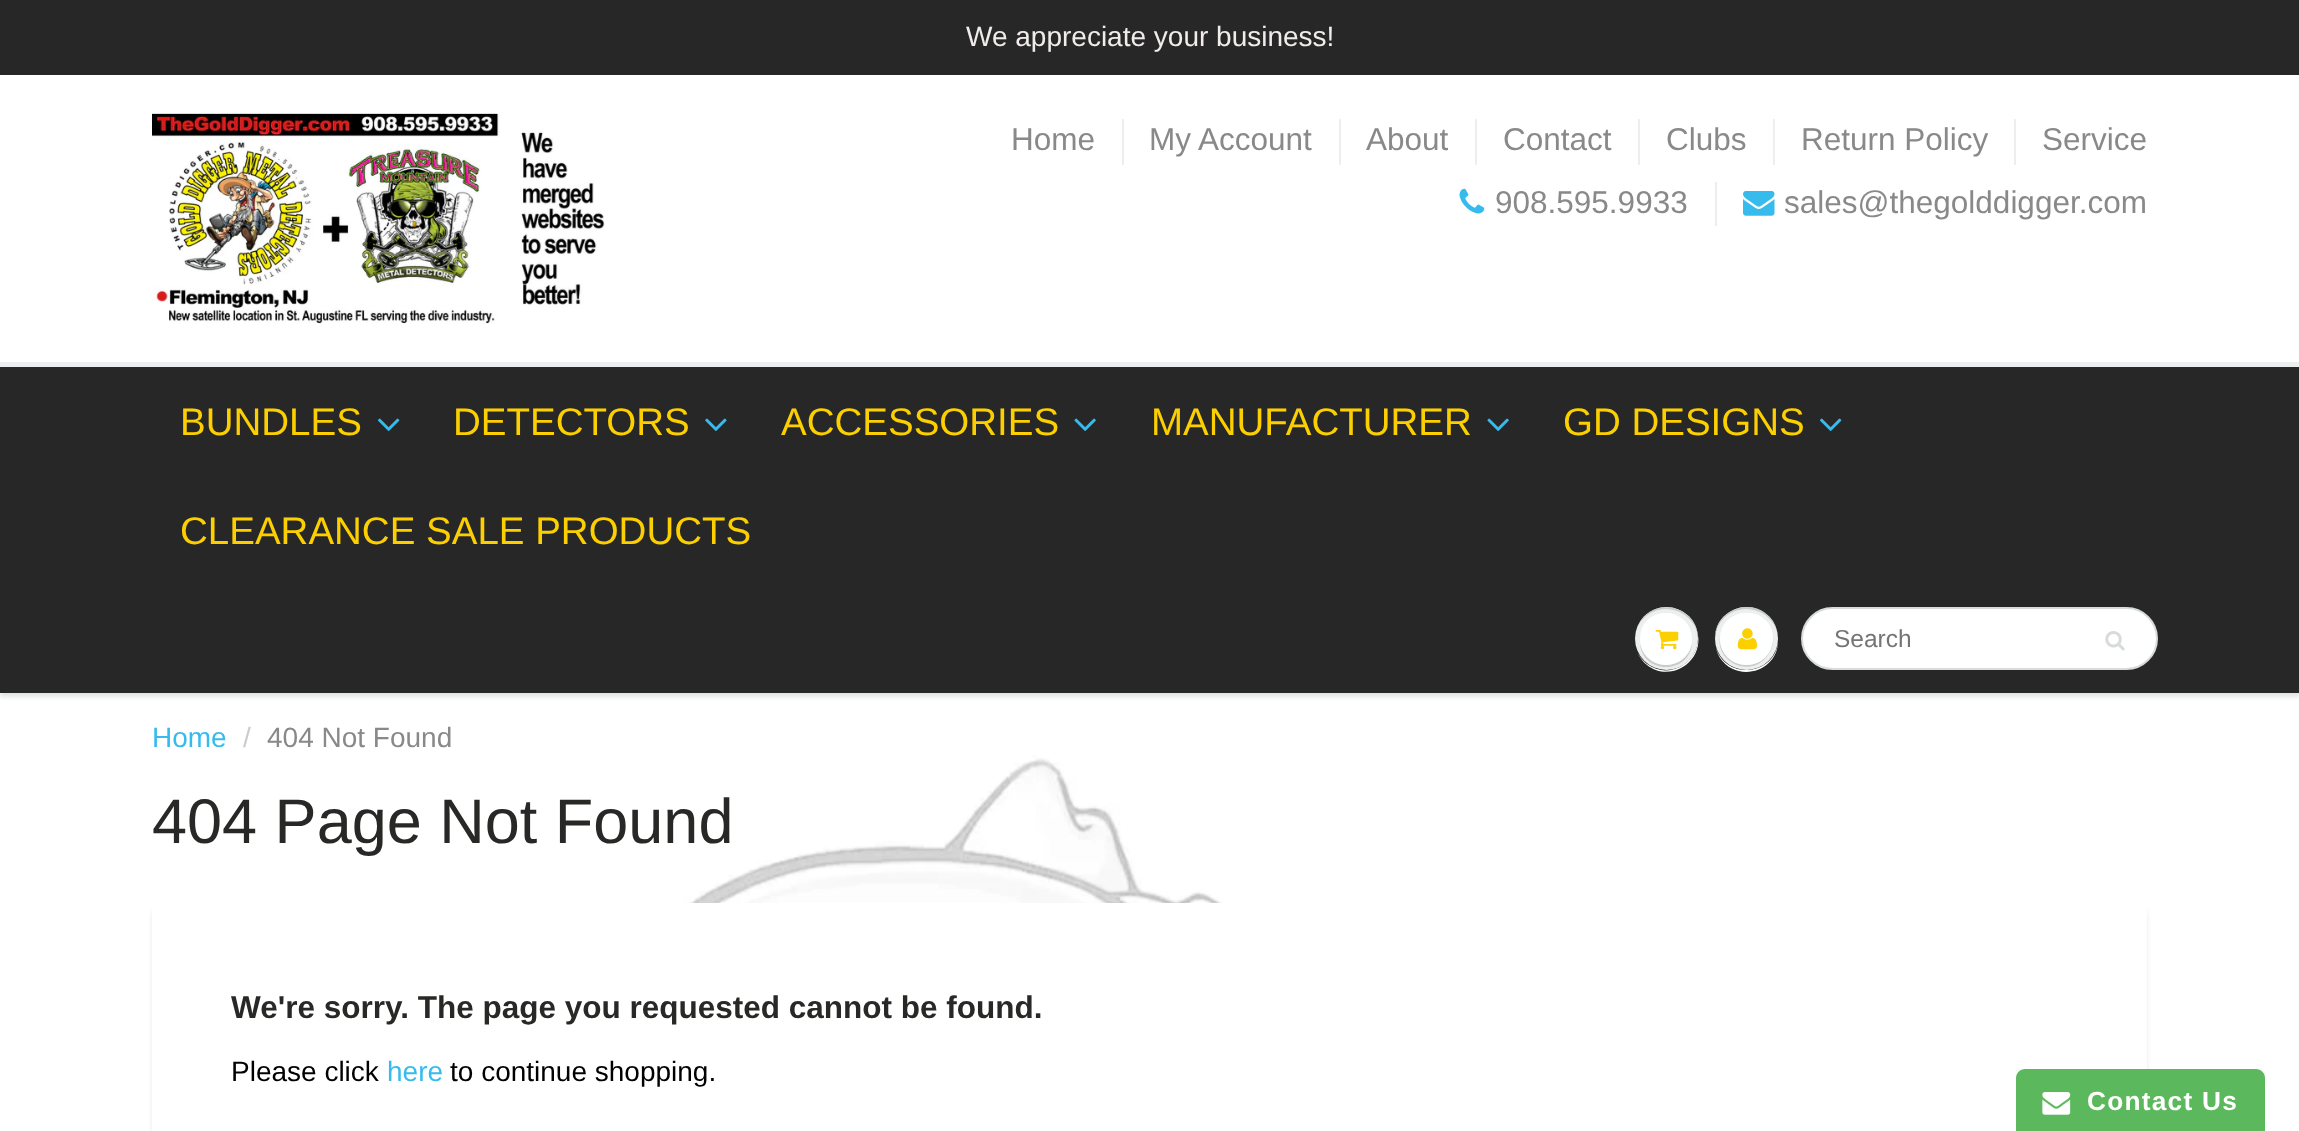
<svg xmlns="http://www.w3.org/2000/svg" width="2299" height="1131">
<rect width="100%" height="100%" fill="#fff"/>
<rect width="2299" height="75" fill="#282727"/>
<text x="966" y="46" style="font-family:Liberation Sans;font-size:28px;fill:#f1ecec">We appreciate your business!</text>
<image x="152" y="113" width="453" height="211" href="media/1.png"/>
<text x="1011" y="150" style="font-family:Liberation Sans;font-size:31.5px;fill:#898989">Home</text>
<rect x="1122" y="119" width="2" height="46" fill="#ecefef"/>
<text x="1149" y="150" style="font-family:Liberation Sans;font-size:31.5px;fill:#898989">My Account</text>
<rect x="1339" y="119" width="2" height="46" fill="#ecefef"/>
<text x="1366" y="150" style="font-family:Liberation Sans;font-size:31.5px;fill:#898989">About</text>
<rect x="1475" y="119" width="2" height="46" fill="#ecefef"/>
<text x="1503" y="150" style="font-family:Liberation Sans;font-size:31.5px;fill:#898989">Contact</text>
<rect x="1638" y="119" width="2" height="46" fill="#ecefef"/>
<text x="1666" y="150" style="font-family:Liberation Sans;font-size:31.5px;fill:#898989">Clubs</text>
<rect x="1773" y="119" width="2" height="46" fill="#ecefef"/>
<text x="1801" y="150" style="font-family:Liberation Sans;font-size:31.5px;fill:#898989">Return Policy</text>
<rect x="2014" y="119" width="2" height="46" fill="#ecefef"/>
<text x="2042" y="150" style="font-family:Liberation Sans;font-size:31.5px;fill:#898989">Service</text>
<image x="1459" y="188" width="26" height="26" href="media/2.png"/>
<text x="1495" y="213" style="font-family:Liberation Sans;font-size:31.5px;fill:#898989">908.595.9933</text>
<rect x="1715" y="182" width="2" height="44" fill="#ecefef"/>
<image x="1743" y="191" width="32" height="25" href="media/3.png"/>
<text x="1784" y="213" style="font-family:Liberation Sans;font-size:31.5px;fill:#898989">sales@thegolddigger.com</text>
<image x="0" y="693" width="2299" height="438" href="media/10.png"/>
<rect y="366" width="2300" height="331" fill="#0b191c1f" filter="blur(2px)"/>
<rect y="367" width="2299" height="326" fill="#282727"/>
<rect y="362" width="2299" height="5" fill="#ecefef"/>
<text x="180" y="435" style="font-family:Liberation Sans;font-size:38.5px;fill:#fbcf00">BUNDLES</text>
<image x="378" y="418" width="22" height="13" href="media/4.png"/>
<text x="453" y="435" style="font-family:Liberation Sans;font-size:38.5px;fill:#fbcf00">DETECTORS</text>
<image x="705" y="418" width="22" height="13" href="media/5.png"/>
<text x="781" y="435" style="font-family:Liberation Sans;font-size:38.5px;fill:#fbcf00">ACCESSORIES</text>
<image x="1074" y="418" width="22" height="13" href="media/6.png"/>
<text x="1151" y="435" style="font-family:Liberation Sans;font-size:38.5px;fill:#fbcf00">MANUFACTURER</text>
<image x="1487" y="418" width="22" height="13" href="media/6.png"/>
<text x="1563" y="435" style="font-family:Liberation Sans;font-size:38.5px;fill:#fbcf00">GD DESIGNS</text>
<image x="1820" y="418" width="22" height="13" href="media/4.png"/>
<text x="180" y="544" style="font-family:Liberation Sans;font-size:38.5px;fill:#fbcf00">CLEARANCE SALE PRODUCTS</text>
<path d="M1636 648c2 7 6 13 11 17c24 19 59-5 50-34c7 28-26 51-50 33c-5-4-9-9-11-16z" fill="#fff"/>
<circle cx="1666.5" cy="638.5" r="31.5" fill="#edefef"/>
<path d="M1666 609c17 0 32 14 32 30c1-34-47-44-60-13c5-10 16-17 28-17zm-26 34c2 32 50 32 52 0c-5 29-47 29-52 0z" fill="#c9cbcb"/>
<circle cx="1666" cy="639" r="26" fill="#fff"/>
<path d="M1666 614c14 0 26 12 26 26c0-26-33-37-48-16c-3 5-4 10-4 16c0-14 12-26 26-26z" fill="#fff"/>
<image x="1655" y="630" width="24" height="20" href="media/7.png"/>
<path d="M1715 640c0 6 2 13 5 18c18 26 59 13 58-18c0 17-14 30-32 30c-17 0-31-13-31-30z" fill="#fff"/>
<circle cx="1746.5" cy="638.5" r="31.5" fill="#edefef"/>
<path d="M1746 609c18 0 32 14 32 30c0-6-2-13-5-18c-18-26-59-13-58 18c0-16 14-30 31-30z" fill="#c9cbcb"/>
<path d="M1720 636c-5 27 32 43 48 19c4-5 6-12 5-19c0 6-1 12-5 17c-15 23-51 10-48-17z" fill="#c9cbcb"/>
<rect x="1720" y="613" width="53" height="52" rx="26" fill="#fff"/>
<path d="M1746 614c15 0 27 12 27 26c0-6-1-11-4-16c-15-21-50-11-49 16c0-14 12-26 26-26z" fill="#fff"/>
<image x="1737" y="628" width="20" height="22" href="media/8.png"/>
<rect x="1802" y="608" width="355" height="61" rx="30.5" fill="#fff" stroke="#d7dbdb" stroke-width="2"/>
<text x="1834" y="647" style="font-family:Liberation Sans;font-size:24.5px;fill:#757575">Search</text>
<image x="2105" y="631" width="20" height="20" href="media/9.png"/>
<text x="152" y="747" style="font-family:Liberation Sans;font-size:28px;fill:#37bbec">Home</text>
<text x="243" y="747" style="font-family:Liberation Sans;font-size:28px;fill:#ccc">/</text>
<text x="267" y="747" style="font-family:Liberation Sans;font-size:28px;fill:#898989">404 Not Found</text>
<text x="152" y="843" style="font-family:Liberation Sans;font-size:63px;fill:#282827">404 Page Not Found</text>
<rect x="152" y="907" width="1995" height="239" rx="9" fill="#0b191c1a" filter="blur(2px)"/>
<rect x="152" y="903" width="1995" height="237" rx="9" fill="#fff"/>
<text x="231" y="1018" style="font-family:Liberation Sans;font-size:31.5px;font-weight:bold;fill:#282827">We're sorry. The page you requested cannot be found.</text>
<text x="231" y="1081" style="font-family:Liberation Sans;font-size:28px;fill:#000">Please click</text>
<text x="387" y="1081" style="font-family:Liberation Sans;font-size:28px;fill:#37bbec">here</text>
<text x="450" y="1081" style="font-family:Liberation Sans;font-size:28px;fill:#000">to continue shopping.</text>
<path d="M2025 1069h231c5 0 9 4 9 9v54h-249v-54c0-5 4-9 9-9z" fill="#5cb85c"/>
<image x="2042" y="1092" width="29" height="23" href="media/11.png"/>
<text x="2087" y="1110" style="font-family:Liberation Sans;font-size:26.25px;font-weight:bold;letter-spacing:1.25px;fill:#fff">Contact Us</text>
</svg>
